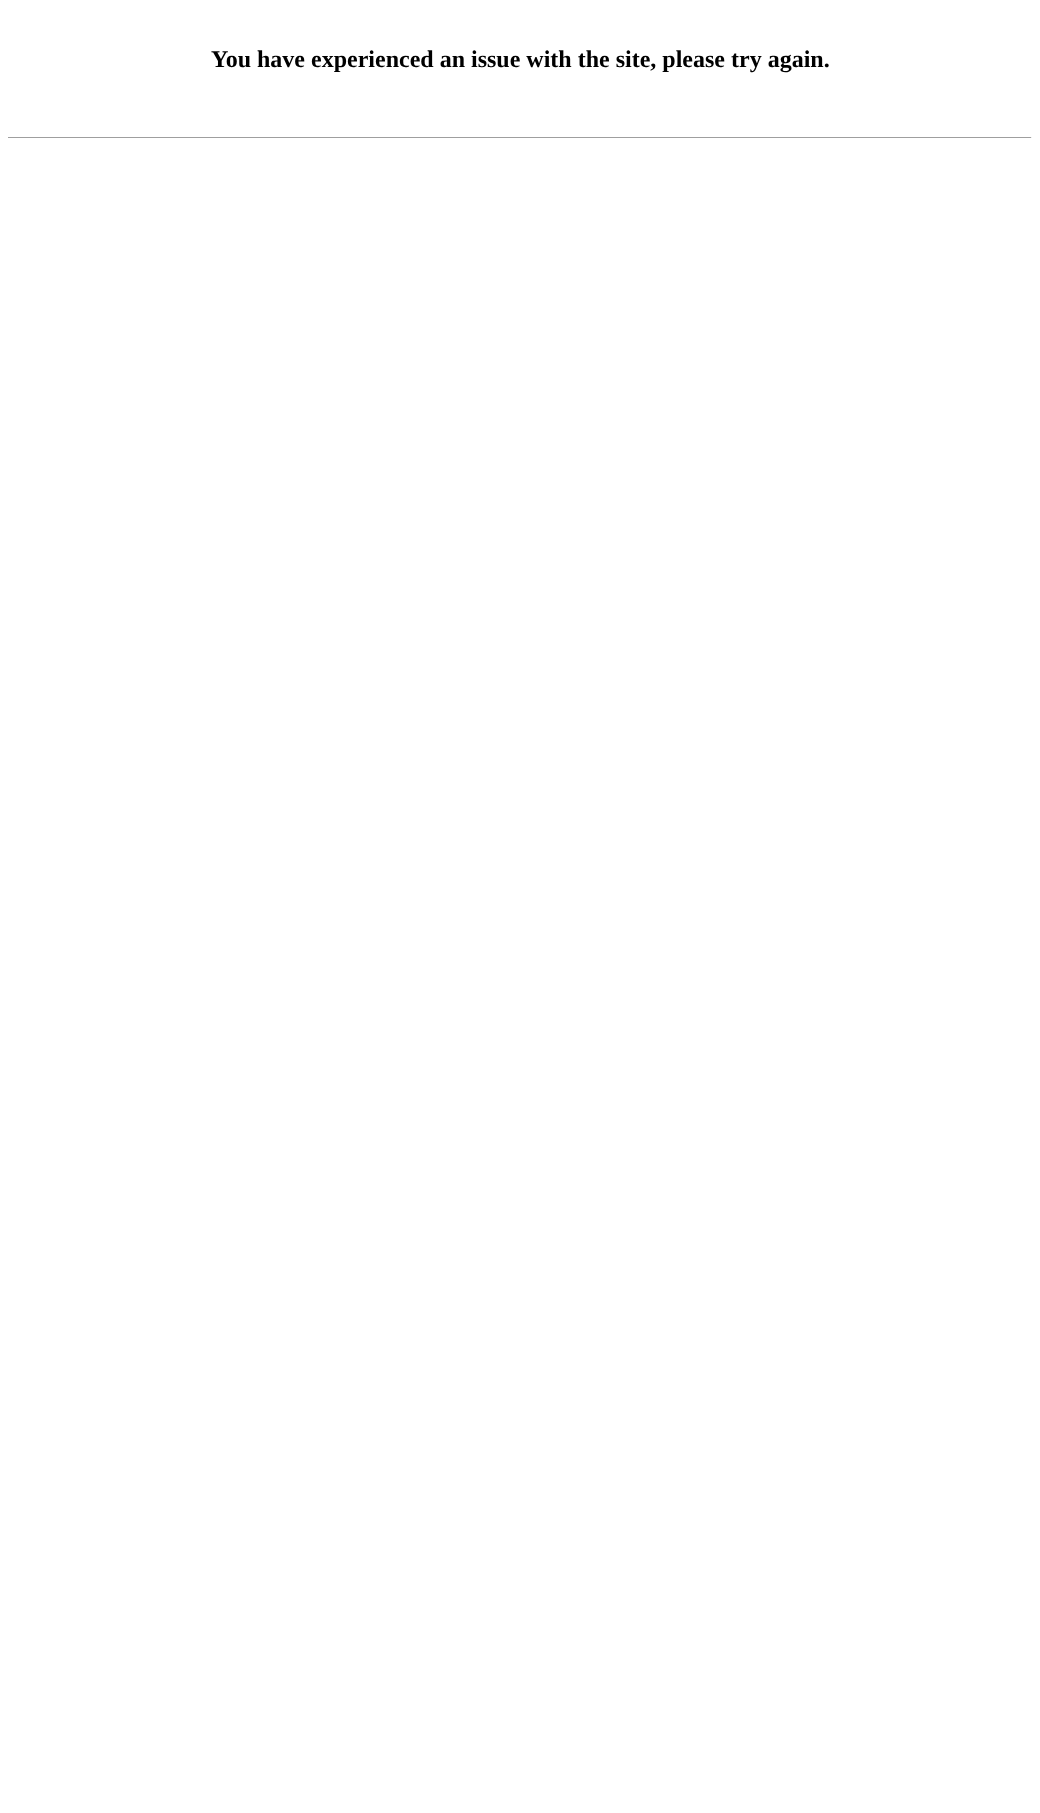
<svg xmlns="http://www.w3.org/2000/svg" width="1040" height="1813">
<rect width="100%" height="100%" fill="#fff"/>
<text x="211" y="67" style="font-family:Liberation Serif;font-size:24px;font-weight:bold;fill:#000">You have experienced an issue with the site, please try again.</text>
<rect x="8" y="137" width="1024" height="1" fill="#9f9f9f"/>
<rect x="1031" y="137" width="1" height="1" fill="#eee"/>
</svg>
